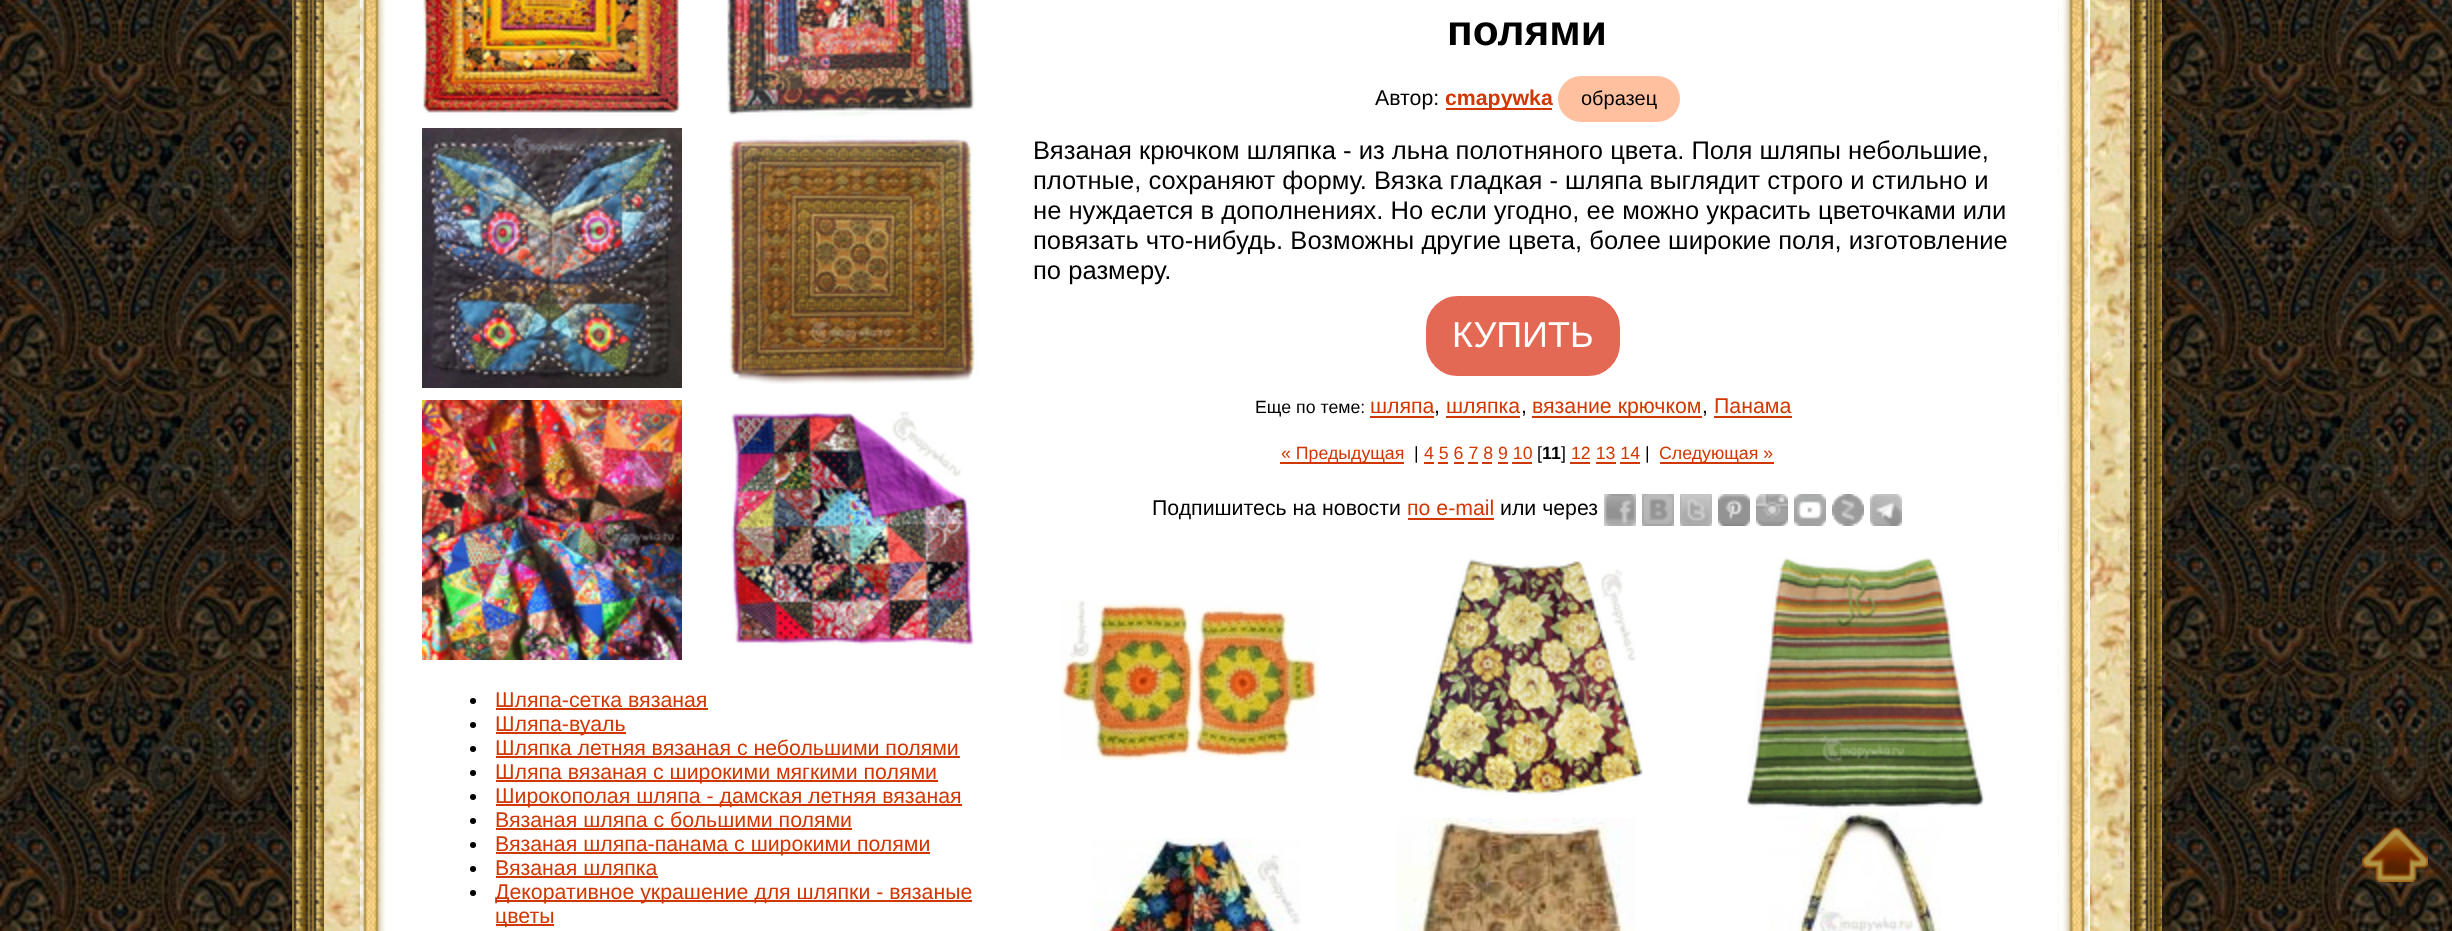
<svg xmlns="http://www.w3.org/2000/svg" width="2452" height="931">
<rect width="100%" height="100%" fill="#fff"/>
<image x="0" y="0" width="2452" height="931" href="media/1.png"/>
<image x="292" y="0" width="32" height="931" href="media/2.png"/>
<image x="324" y="0" width="1806" height="931" href="media/3.png"/>
<image x="360" y="0" width="30" height="931" href="media/4.png"/>
<rect x="390" width="1668" height="931" fill="#fff"/>
<text x="1447" y="45" style="font-family:Liberation Sans;font-size:42.5px;font-weight:bold;fill:#000">полями</text>
<text x="1375" y="105" style="font-family:Liberation Sans;font-size:21.3px;fill:#000">Автор:</text>
<rect x="1446" y="108" width="106" height="2" fill="#d13702"/>
<text x="1445" y="105" style="font-family:Liberation Sans;font-size:21.3px;font-weight:bold;fill:#d13702">cmapywka</text>
<rect x="1558" y="76" width="122" height="46" rx="23" fill="#ffc0a0"/>
<text x="1581" y="105" style="font-family:Liberation Sans;font-size:20px;fill:#000">образец</text>
<text x="1033" y="159" style="font-family:Liberation Sans;font-size:25.6px;fill:#000">Вязаная крючком шляпка - из льна полотняного цвета. Поля шляпы небольшие,</text>
<text x="1033" y="189" style="font-family:Liberation Sans;font-size:25.6px;fill:#000">плотные, сохраняют форму. Вязка гладкая - шляпа выглядит строго и стильно и</text>
<text x="1033" y="219" style="font-family:Liberation Sans;font-size:25.6px;fill:#000">не нуждается в дополнениях. Но если угодно, ее можно украсить цветочками или</text>
<text x="1033" y="249" style="font-family:Liberation Sans;font-size:25.6px;fill:#000">повязать что-нибудь. Возможны другие цвета, более широкие поля, изготовление</text>
<text x="1033" y="279" style="font-family:Liberation Sans;font-size:25.6px;fill:#000">по размеру.</text>
<rect x="1429" y="299" width="188" height="74" rx="29" fill="#e36954" stroke="#e36954" stroke-width="6"/>
<text x="1452" y="347" style="font-family:Liberation Sans;font-size:36px;fill:#fff">КУПИТЬ</text>
<text x="1255" y="413" style="font-family:Liberation Sans;font-size:17.75px;fill:#000">Еще по теме:</text>
<text x="1370" y="413" style="font-family:Liberation Sans;font-size:21.3px;fill:#d13702">шляпа</text>
<text x="1434" y="413" style="font-family:Liberation Sans;font-size:21.3px;fill:#000">,</text>
<rect x="1370" y="416" width="64" height="2" fill="#d13702"/>
<text x="1446" y="413" style="font-family:Liberation Sans;font-size:21.3px;fill:#d13702">шляпка</text>
<text x="1521" y="413" style="font-family:Liberation Sans;font-size:21.3px;fill:#000">,</text>
<rect x="1446" y="416" width="74" height="2" fill="#d13702"/>
<rect x="1532" y="416" width="170" height="2" fill="#d13702"/>
<text x="1532" y="413" style="font-family:Liberation Sans;font-size:21.3px;fill:#d13702">вязание крючком</text>
<text x="1702" y="413" style="font-family:Liberation Sans;font-size:21.3px;fill:#000">,</text>
<rect x="1714" y="416" width="78" height="2" fill="#d13702"/>
<text x="1714" y="413" style="font-family:Liberation Sans;font-size:21.3px;fill:#d13702">Панама</text>
<rect x="1280" y="462" width="124" height="2" fill="#d13702"/>
<text x="1281" y="459" style="font-family:Liberation Sans;font-size:17.75px;fill:#d13702">« Предыдущая</text>
<text x="1414" y="459" style="font-family:Liberation Sans;font-size:17.75px;fill:#000">|</text>
<text x="1424" y="459" style="font-family:Liberation Sans;font-size:17.75px;fill:#d13702">4 5 6 7 8 9 10</text>
<rect x="1424" y="462" width="10" height="2" fill="#d13702"/>
<rect x="1438" y="462" width="10" height="2" fill="#d13702"/>
<rect x="1454" y="462" width="10" height="2" fill="#d13702"/>
<rect x="1468" y="462" width="10" height="2" fill="#d13702"/>
<rect x="1482" y="462" width="10" height="2" fill="#d13702"/>
<rect x="1498" y="462" width="10" height="2" fill="#d13702"/>
<rect x="1512" y="462" width="20" height="2" fill="#d13702"/>
<text x="1537" y="459" style="font-family:Liberation Sans;font-size:17.75px;fill:#000">[</text>
<text x="1542" y="459" style="font-family:Liberation Sans;font-size:17.75px;font-weight:bold;fill:#000">11</text>
<text x="1561" y="459" style="font-family:Liberation Sans;font-size:17.75px;fill:#000">]</text>
<text x="1571" y="459" style="font-family:Liberation Sans;font-size:17.75px;fill:#d13702">12 13 14</text>
<rect x="1570" y="462" width="20" height="2" fill="#d13702"/>
<rect x="1596" y="462" width="20" height="2" fill="#d13702"/>
<rect x="1620" y="462" width="20" height="2" fill="#d13702"/>
<text x="1645" y="459" style="font-family:Liberation Sans;font-size:17.75px;fill:#000">|</text>
<rect x="1660" y="462" width="114" height="2" fill="#d13702"/>
<text x="1659" y="459" style="font-family:Liberation Sans;font-size:17.75px;fill:#d13702">Следующая »</text>
<text x="1152" y="515" style="font-family:Liberation Sans;font-size:21.3px;fill:#000">Подпишитесь на новости</text>
<text x="1407" y="515" style="font-family:Liberation Sans;font-size:21.3px;fill:#d13702">по e-mail</text>
<rect x="1408" y="518" width="86" height="2" fill="#d13702"/>
<text x="1500" y="515" style="font-family:Liberation Sans;font-size:21.3px;fill:#000">или через</text>
<image x="1604" y="494" width="32" height="32" href="media/5.png"/>
<image x="1642" y="494" width="32" height="32" href="media/6.png"/>
<image x="1680" y="494" width="32" height="32" href="media/7.png"/>
<image x="1718" y="494" width="32" height="32" href="media/8.png"/>
<image x="1756" y="494" width="32" height="32" href="media/9.png"/>
<image x="1794" y="494" width="32" height="32" href="media/10.png"/>
<image x="1832" y="494" width="32" height="32" href="media/11.png"/>
<image x="1870" y="494" width="32" height="32" href="media/12.png"/>
<image x="1060" y="599" width="259" height="162" href="media/13.png"/>
<image x="1412" y="559" width="231" height="237" href="media/14.png"/>
<image x="1746" y="557" width="239" height="252" href="media/15.png"/>
<image x="1091" y="838" width="210" height="93" href="media/16.png"/>
<image x="1396" y="818" width="239" height="113" href="media/17.png"/>
<image x="1770" y="812" width="171" height="119" href="media/18.png"/>
<image x="423" y="0" width="258" height="116" href="media/19.png"/>
<image x="727" y="0" width="248" height="116" href="media/20.png"/>
<image x="422" y="128" width="260" height="260" href="media/21.png"/>
<image x="729" y="135" width="249" height="249" href="media/22.png"/>
<image x="422" y="400" width="260" height="260" href="media/23.png"/>
<image x="731" y="411" width="244" height="234" href="media/24.png"/>
<circle cx="473" cy="701" r="3" fill="#000"/>
<text x="495" y="707" style="font-family:Liberation Sans;font-size:21.3px;fill:#d13702">Шляпа-сетка вязаная</text>
<rect x="496" y="708" width="212" height="2" fill="#d13702"/>
<circle cx="473" cy="725" r="3" fill="#000"/>
<rect x="496" y="732" width="130" height="2" fill="#d13702"/>
<text x="495" y="731" style="font-family:Liberation Sans;font-size:21.3px;fill:#d13702">Шляпа-вуаль</text>
<circle cx="473" cy="749" r="3" fill="#000"/>
<text x="495" y="755" style="font-family:Liberation Sans;font-size:21.3px;fill:#d13702">Шляпка летняя вязаная с небольшими полями</text>
<rect x="496" y="756" width="464" height="2" fill="#d13702"/>
<circle cx="473" cy="773" r="3" fill="#000"/>
<rect x="496" y="780" width="442" height="2" fill="#d13702"/>
<text x="495" y="779" style="font-family:Liberation Sans;font-size:21.3px;fill:#d13702">Шляпа вязаная с широкими мягкими полями</text>
<circle cx="473" cy="797" r="3" fill="#000"/>
<rect x="496" y="804" width="466" height="2" fill="#d13702"/>
<text x="495" y="803" style="font-family:Liberation Sans;font-size:21.3px;fill:#d13702">Широкополая шляпа - дамская летняя вязаная</text>
<circle cx="473" cy="821" r="3" fill="#000"/>
<text x="495" y="827" style="font-family:Liberation Sans;font-size:21.3px;fill:#d13702">Вязаная шляпа с большими полями</text>
<rect x="496" y="828" width="356" height="2" fill="#d13702"/>
<circle cx="473" cy="845" r="3" fill="#000"/>
<rect x="496" y="852" width="434" height="2" fill="#d13702"/>
<text x="495" y="851" style="font-family:Liberation Sans;font-size:21.3px;fill:#d13702">Вязаная шляпа-панама с широкими полями</text>
<circle cx="473" cy="869" r="3" fill="#000"/>
<text x="495" y="875" style="font-family:Liberation Sans;font-size:21.3px;fill:#d13702">Вязаная шляпка</text>
<rect x="496" y="876" width="162" height="2" fill="#d13702"/>
<circle cx="473" cy="893" r="3" fill="#000"/>
<rect x="496" y="900" width="476" height="2" fill="#d13702"/>
<text x="495" y="899" style="font-family:Liberation Sans;font-size:21.3px;fill:#d13702">Декоративное украшение для шляпки - вязаные</text>
<rect x="496" y="924" width="58" height="2" fill="#d13702"/>
<text x="495" y="923" style="font-family:Liberation Sans;font-size:21.3px;fill:#d13702">цветы</text>
<image x="2058" y="0" width="32" height="931" href="media/25.png"/>
<image x="2130" y="0" width="32" height="931" href="media/26.png"/>
<image x="2362" y="827" width="66" height="55" href="media/27.png"/>
</svg>
